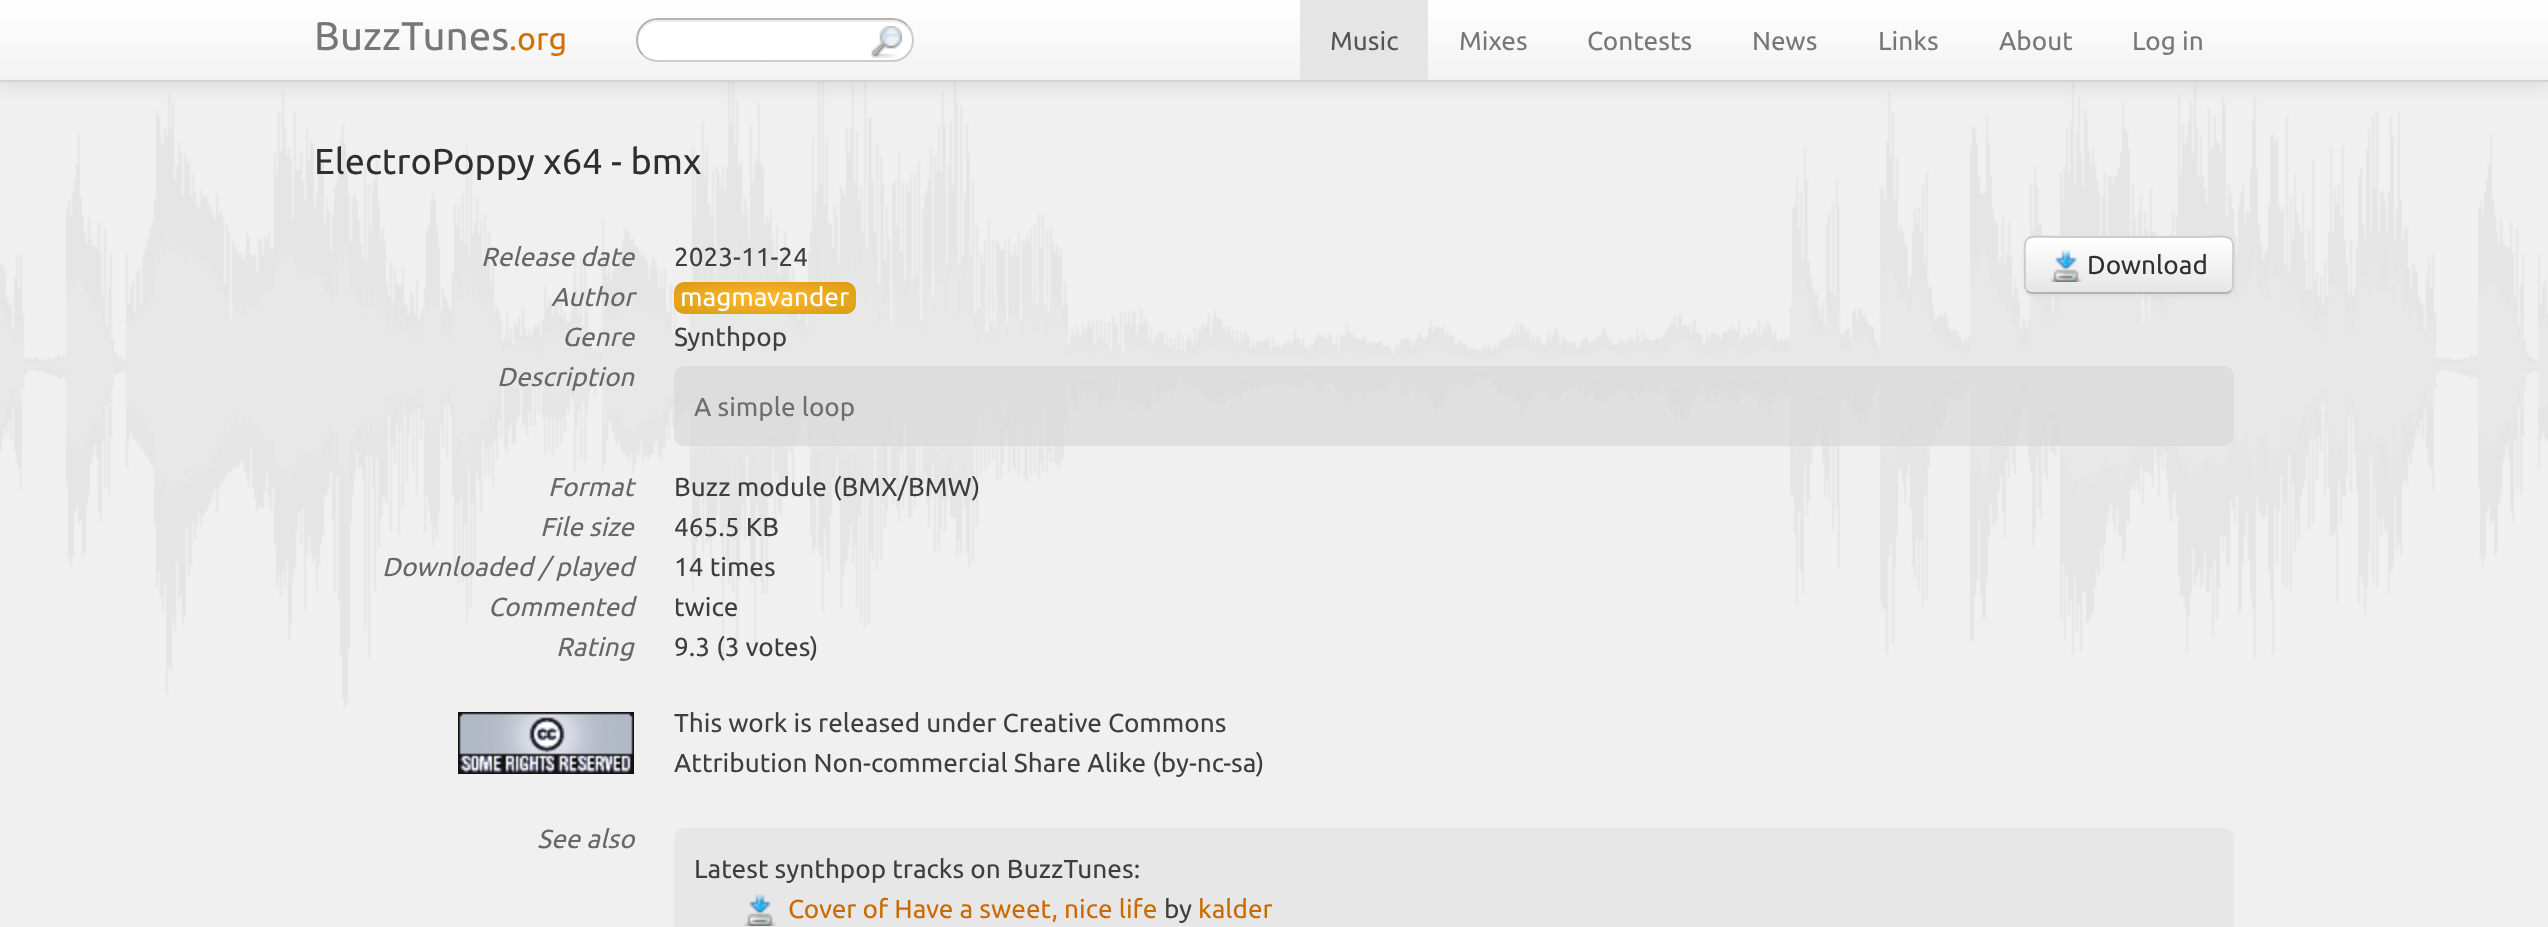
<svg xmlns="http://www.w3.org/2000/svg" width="2548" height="927">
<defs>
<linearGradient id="g1" gradientUnits="userSpaceOnUse" x1="1274" y1="0" x2="1274" y2="80"><stop offset="0" stop-color="#fff"/><stop offset="1" stop-color="#f2f2f2"/></linearGradient>
<clipPath id="clip1"><rect x="314" y="140" width="1920" height="40"/></clipPath>
<clipPath id="clip2"><rect x="2024" y="236" width="210" height="58" rx="8"/></clipPath>
<linearGradient id="g2" gradientUnits="userSpaceOnUse" x1="2129" y1="238" x2="2129" y2="292"><stop offset="0" stop-color="#fff"/><stop offset="1" stop-color="#e6e6e6"/></linearGradient>
<radialGradient id="g3" gradientUnits="userSpaceOnUse" cx="0" cy="0" r="1" gradientTransform="matrix(129 0 0 23 765 298)"><stop offset="0.01" stop-color="#ffba30"/><stop offset="1" stop-color="#d99a11"/></radialGradient>
</defs>
<rect width="100%" height="100%" fill="#f0f0f0"/>
<image x="0" y="82" width="2548" height="626" href="media/1.png"/>
<rect y="2" width="2548" height="82" fill="#0000001a" filter="blur(10px)"/>
<rect width="2548" height="80" fill="url(#g1)"/>
<rect y="80" width="2548" height="2" fill="#d4d4d4"/>
<text x="314" y="50" style="font-family:Ubuntu;font-size:40px;fill:#777">BuzzTunes</text>
<text x="509" y="50" style="font-family:Ubuntu;font-size:32px;fill:#d07000">.org</text>
<rect x="636" y="18" width="278" height="44" rx="22" fill="#fff"/>
<path d="M658 22h234c11 0 19 8 20 19c1-30-45-21-59-21h-156c-14 0-60-9-59 21c1-11 9-19 20-19z" fill="#ececec"/>
<path d="M907 25c4 4 6 9.5 6 15c0 5.5-2 11-6 15c-4 4-9.5 6-15 6h-234c-5.5 0-11-2-15-6" fill="none" stroke="#ccc" stroke-width="2"/>
<path d="M643 55c-4-4-6-9.5-6-15c0-5.5 2-11 6-15c4-4 9.5-6 15-6h234c5.5 0 11 2 15 6" fill="none" stroke="#b3b3b3" stroke-width="2"/>
<image x="871" y="26" width="31" height="32" href="media/2.png"/>
<rect x="1300" width="128" height="80" fill="#e5e5e5"/>
<text x="1330" y="50" style="font-family:Ubuntu;font-size:26px;fill:#555">Music</text>
<text x="1459" y="50" style="font-family:Ubuntu;font-size:26px;fill:#777">Mixes</text>
<text x="1587" y="50" style="font-family:Ubuntu;font-size:26px;fill:#777">Contests</text>
<text x="1752" y="50" style="font-family:Ubuntu;font-size:26px;fill:#777">News</text>
<text x="1878" y="50" style="font-family:Ubuntu;font-size:26px;fill:#777">Links</text>
<text x="1999" y="50" style="font-family:Ubuntu;font-size:26px;fill:#777">About</text>
<text x="2132" y="50" style="font-family:Ubuntu;font-size:26px;fill:#777">Log in</text>
<g clip-path="url(#clip1)">
<text x="314" y="174" style="font-family:Ubuntu;font-size:36px;fill:#2f2f2f">ElectroPoppy x64 - bmx</text>
</g>
<text x="481" y="266" style="font-family:Ubuntu;font-size:26px;font-style:italic;fill:#676767">Release date</text>
<text x="674" y="266" style="font-family:Ubuntu;font-size:26px;fill:#3e3e3e">2023-11-24</text>
<rect x="2024" y="238" width="210" height="58" rx="8" fill="#0000000d" filter="blur(2px)"/>
<rect x="2024" y="236" width="210" height="58" rx="8" fill="#f5f5f5"/>
<g clip-path="url(#clip2)">
<rect x="2024" y="238" width="210" height="54" fill="url(#g2)"/>
</g>
<path d="M2231 291c-1.5 1.5-3 2-5 2h-194c-2 0-3.5-.5-5-2" fill="none" stroke="#b3b3b3" stroke-width="2"/>
<path d="M2027 291c-3-3-2-8-2-12v-7c0-42.5-6.5-35 39.5-35h129c46 0 39.5-7.5 39.5 35v7c0 4 1 9-2 12" fill="none" stroke="#ccc" stroke-width="2"/>
<image x="2050" y="250" width="32" height="32" href="media/3.png"/>
<text x="2087" y="274" style="font-family:Ubuntu;font-size:26px;fill:#2f2f2f">Download</text>
<text x="551" y="306" style="font-family:Ubuntu;font-size:26px;font-style:italic;fill:#676767">Author</text>
<rect x="674" y="282" width="182" height="32" rx="10" fill="url(#g3)"/>
<text x="680" y="306" style="font-family:Ubuntu;font-size:26px;fill:#fff">magmavander</text>
<text x="562" y="346" style="font-family:Ubuntu;font-size:26px;font-style:italic;fill:#676767">Genre</text>
<text x="674" y="346" style="font-family:Ubuntu;font-size:26px;fill:#3e3e3e">Synthpop</text>
<text x="497" y="386" style="font-family:Ubuntu;font-size:26px;font-style:italic;fill:#676767">Description</text>
<rect x="674" y="366" width="1560" height="80" rx="10" fill="#d8d8d8b3"/>
<text x="694" y="416" style="font-family:Ubuntu;font-size:26px;fill:#6e6e6e">A simple loop</text>
<text x="548" y="496" style="font-family:Ubuntu;font-size:26px;font-style:italic;fill:#676767">Format</text>
<text x="674" y="496" style="font-family:Ubuntu;font-size:26px;fill:#3e3e3e">Buzz module (BMX/BMW)</text>
<text x="540" y="536" style="font-family:Ubuntu;font-size:26px;font-style:italic;fill:#676767">File size</text>
<text x="674" y="536" style="font-family:Ubuntu;font-size:26px;fill:#3e3e3e">465.5 KB</text>
<text x="382" y="576" style="font-family:Ubuntu;font-size:26px;font-style:italic;fill:#676767">Downloaded / played</text>
<text x="674" y="576" style="font-family:Ubuntu;font-size:26px;fill:#3e3e3e">14 times</text>
<text x="488" y="616" style="font-family:Ubuntu;font-size:26px;font-style:italic;fill:#676767">Commented</text>
<text x="674" y="616" style="font-family:Ubuntu;font-size:26px;fill:#3e3e3e">twice</text>
<text x="556" y="656" style="font-family:Ubuntu;font-size:26px;font-style:italic;fill:#676767">Rating</text>
<text x="674" y="656" style="font-family:Ubuntu;font-size:26px;fill:#3e3e3e">9.3 (3 votes)</text>
<image x="458" y="712" width="176" height="62" href="media/4.png"/>
<text x="674" y="732" style="font-family:Ubuntu;font-size:26px;fill:#3e3e3e">This work is released under Creative Commons</text>
<text x="674" y="772" style="font-family:Ubuntu;font-size:26px;fill:#3e3e3e">Attribution Non-commercial Share Alike (by-nc-sa)</text>
<text x="537" y="848" style="font-family:Ubuntu;font-size:26px;font-style:italic;fill:#676767">See also</text>
<rect x="674" y="828" width="1560" height="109" rx="10" fill="#e8e7e7"/>
<text x="694" y="878" style="font-family:Ubuntu;font-size:26px;fill:#3e3e3e">Latest synthpop tracks on BuzzTunes:</text>
<image x="744" y="894" width="32" height="32" href="media/5.png"/>
<text x="788" y="918" style="font-family:Ubuntu;font-size:26px;fill:#ca6a00">Cover of Have a sweet, nice life</text>
<text x="1164" y="918" style="font-family:Ubuntu;font-size:26px;fill:#3e3e3e">by</text>
<text x="1198" y="918" style="font-family:Ubuntu;font-size:26px;fill:#ca6a00">kalder</text>
</svg>
